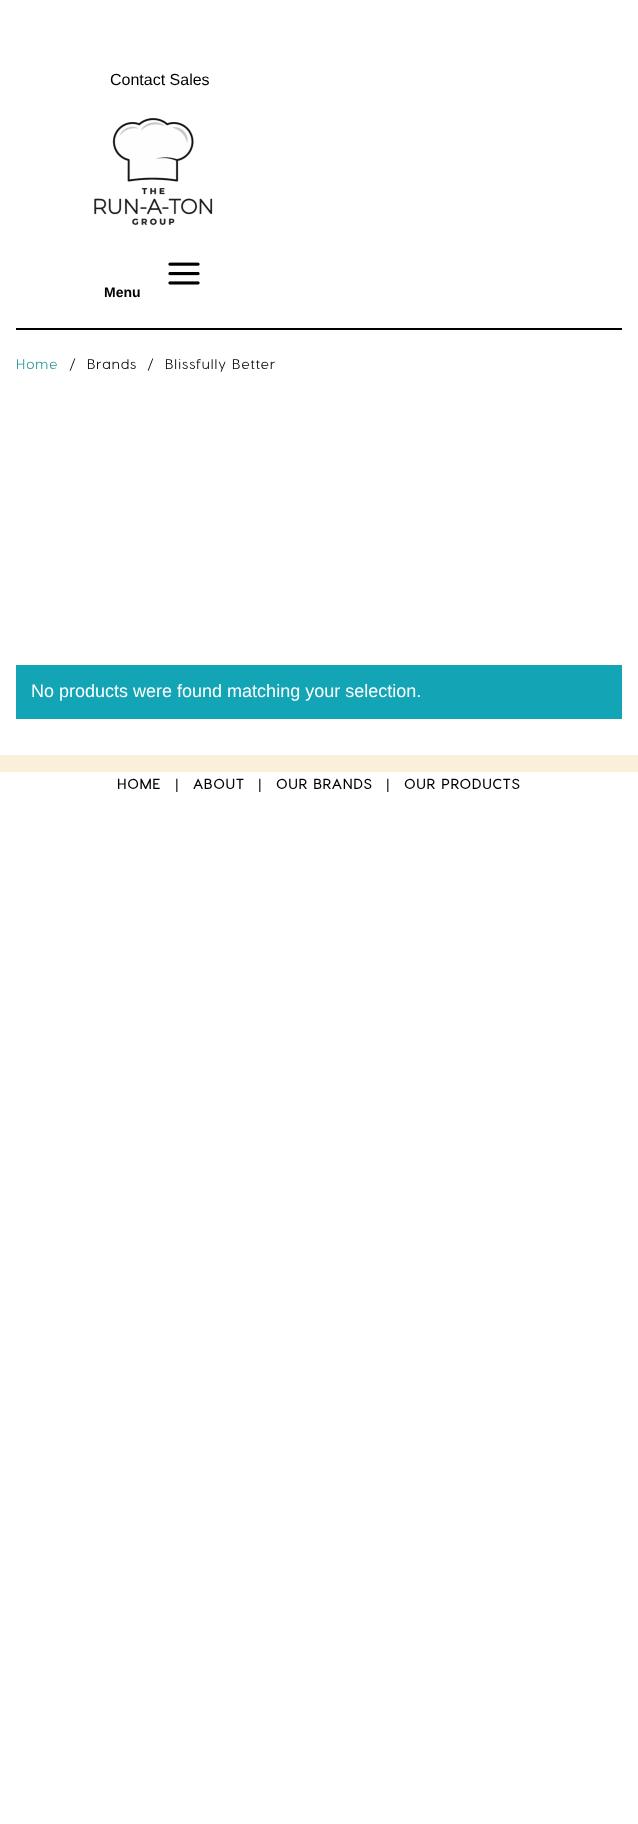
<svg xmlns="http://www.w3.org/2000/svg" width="638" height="1824">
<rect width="100%" height="100%" fill="#fff"/>
<text x="110" y="85" style="font-family:Liberation Sans;font-size:16px;fill:#000">Contact Sales</text>
<image x="94" y="118" width="119" height="108" href="media/1.png"/>
<image x="168" y="262" width="32" height="23" href="media/2.png"/>
<text x="104" y="297" style="font-family:Liberation Sans;font-size:14px;font-weight:bold;fill:#000">Menu</text>
<rect x="16" y="328" width="606" height="2" fill="#000"/>
<text x="16" y="369" style="font-family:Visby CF;font-size:14px;font-weight:500;letter-spacing:1px;fill:#2a969f">Home</text>
<text x="69" y="369" style="font-family:Visby CF;font-size:14px;font-weight:500;letter-spacing:1px;fill:#000">/</text>
<text x="87" y="369" style="font-family:Visby CF;font-size:14px;font-weight:500;letter-spacing:1px;fill:#000">Brands</text>
<text x="147" y="369" style="font-family:Visby CF;font-size:14px;font-weight:500;letter-spacing:1px;fill:#000">/</text>
<text x="165" y="369" style="font-family:Visby CF;font-size:14px;font-weight:500;letter-spacing:1px;fill:#000">Blissfully Better</text>
<rect x="16" y="665" width="606" height="54" fill="#13a4b5"/>
<text x="31" y="697" style="font-family:Liberation Sans;font-size:18px;fill:#fff">No products were found matching your selection.</text>
<rect y="755" width="638" height="17" fill="#faefd9"/>
<text x="117" y="789" style="font-family:Visby CF;font-size:14px;font-weight:bold;letter-spacing:1px;fill:#000">HOME</text>
<text x="175" y="789" style="font-family:Liberation Sans;font-size:14px;fill:#000">|</text>
<text x="193" y="789" style="font-family:Visby CF;font-size:14px;font-weight:bold;letter-spacing:1px;fill:#000">ABOUT</text>
<text x="258" y="789" style="font-family:Liberation Sans;font-size:14px;fill:#000">|</text>
<text x="276" y="789" style="font-family:Visby CF;font-size:14px;font-weight:bold;letter-spacing:1px;fill:#000">OUR BRANDS</text>
<text x="386" y="789" style="font-family:Liberation Sans;font-size:14px;fill:#000">|</text>
<text x="404" y="789" style="font-family:Visby CF;font-size:14px;font-weight:bold;letter-spacing:1px;fill:#000">OUR PRODUCTS</text>
</svg>
